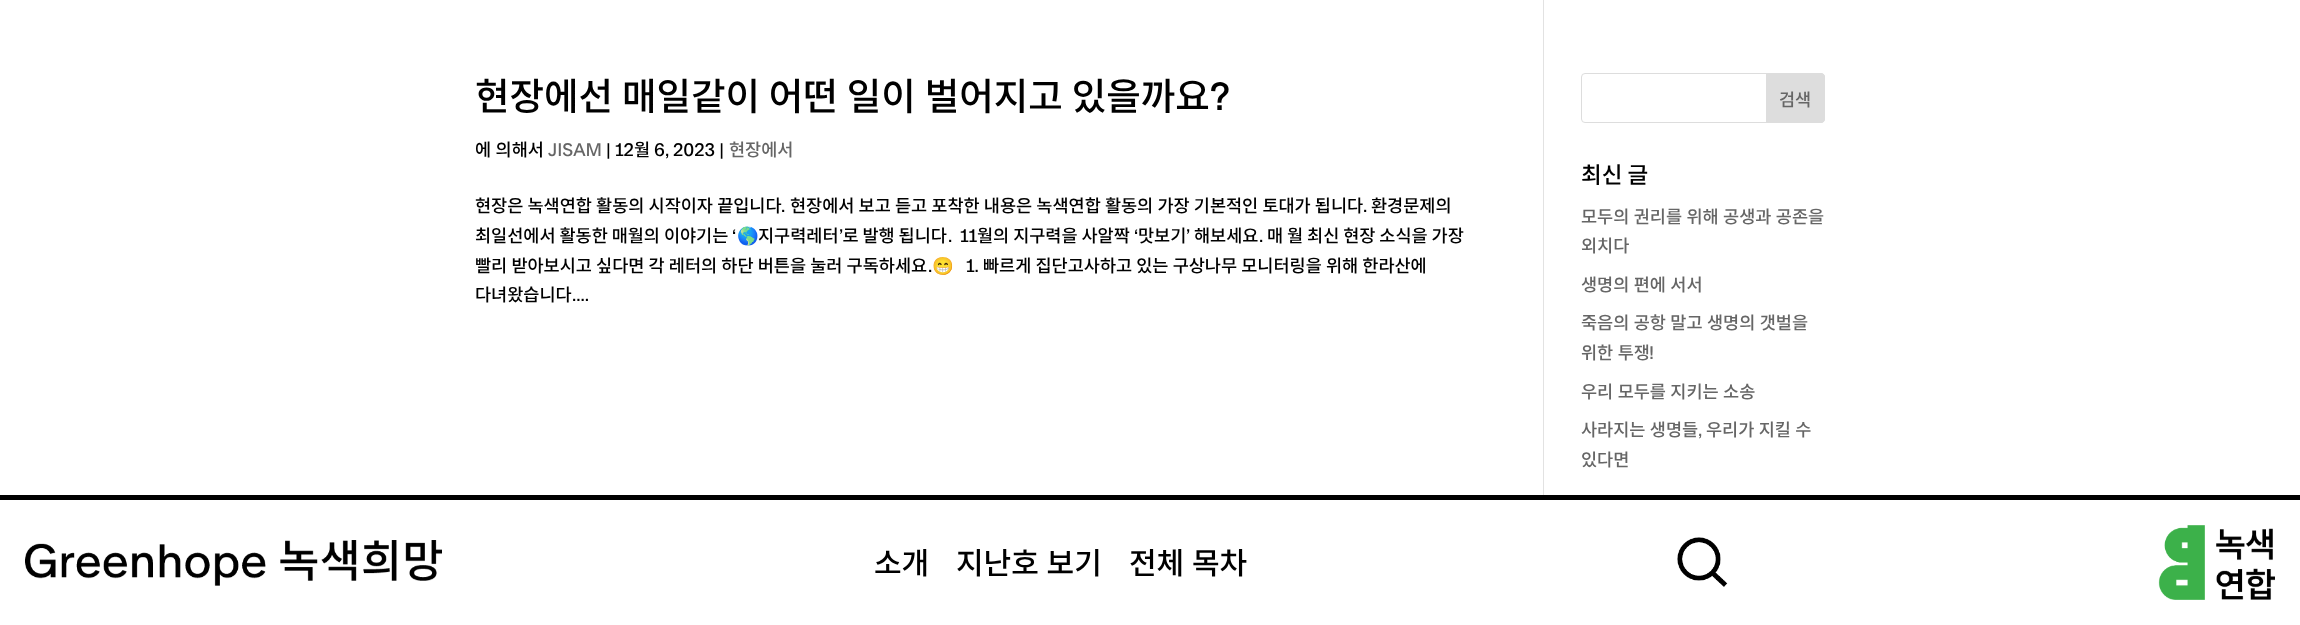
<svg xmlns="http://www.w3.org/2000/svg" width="2300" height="625">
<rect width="100%" height="100%" fill="#fff"/>
<rect x="1543" width="1" height="495" fill="#e2e2e2"/>
<text x="475" y="110" word-spacing="0.5" style="font-family:Noto Sans KR;font-size:37.5px;font-weight:500;fill:#000">현장에선 매일같이 어떤 일이 벌어지고 있을까요</text>
<text x="1210" y="110" style="font-family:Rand;font-size:37.5px;font-weight:500;fill:#000">?</text>
<text x="475" y="156" word-spacing="0.5" style="font-family:Noto Sans KR;font-size:17.5px;font-weight:500;fill:#000">에 의해서</text>
<text x="548" y="156" style="font-family:Rand;font-size:17.5px;font-weight:500;fill:#666">JISAM</text>
<text x="606" y="156" style="font-family:Rand;font-size:17.5px;font-weight:500;fill:#000">| 12</text>
<text x="634" y="156" style="font-family:Noto Sans KR;font-size:17.5px;font-weight:500;fill:#000">월</text>
<text x="654" y="156" style="font-family:Rand;font-size:17.5px;font-weight:500;fill:#000">6, 2023 |</text>
<text x="729" y="156" style="font-family:Noto Sans KR;font-size:17.5px;font-weight:500;fill:#666">현장에서</text>
<text x="475" y="212" word-spacing="0.25" style="font-family:Noto Sans KR;font-size:17.5px;font-weight:500;fill:#000">현장은 녹색연합 활동의 시작이자 끝입니다</text>
<text x="781" y="212" style="font-family:Rand;font-size:17.5px;font-weight:500;fill:#000">.</text>
<text x="790" y="212" word-spacing="0.25" style="font-family:Noto Sans KR;font-size:17.5px;font-weight:500;fill:#000">현장에서 보고 듣고 포착한 내용은 녹색연합 활동의 가장 기본적인 토대가 됩니다</text>
<text x="1363" y="212" style="font-family:Rand;font-size:17.5px;font-weight:500;fill:#000">.</text>
<text x="1371" y="212" style="font-family:Noto Sans KR;font-size:17.5px;font-weight:500;fill:#000">환경문제의</text>
<text x="475" y="242" style="font-family:Noto Sans KR;font-size:17.5px;font-weight:500;fill:#000">최일선에서 활동한 매월의 이야기는</text>
<text x="732" y="242" style="font-family:Rand;font-size:17.5px;font-weight:500;fill:#000">‘</text>
<text x="737" y="242" style="font-family:Noto Color Emoji;font-size:17.5px;fill:#000">🌎</text>
<text x="758" y="242" style="font-family:Noto Sans KR;font-size:17.5px;font-weight:500;fill:#000">지구력레터 로 발행 됩니다</text>
<text x="977" y="242" style="font-family:Noto Sans KR;font-size:17.5px;font-weight:500;fill:#000">월의 지구력을 사알짝</text>
<text x="1138" y="242" style="font-family:Noto Sans KR;font-size:17.5px;font-weight:500;fill:#000">맛보기</text>
<text x="1194" y="242" style="font-family:Noto Sans KR;font-size:17.5px;font-weight:500;fill:#000">해보세요</text>
<text x="1267" y="242" style="font-family:Noto Sans KR;font-size:17.5px;font-weight:500;fill:#000">매 월 최신 현장 소식을 가장</text>
<text x="839" y="242" style="font-family:Rand;font-size:17.5px;font-weight:500;fill:#000">’</text>
<text x="960" y="242" style="font-family:Rand;font-size:17.5px;font-weight:500;fill:#000">11</text>
<text x="1134" y="242" style="font-family:Rand;font-size:17.5px;font-weight:500;fill:#000">‘</text>
<text x="1186" y="242" style="font-family:Rand;font-size:17.5px;font-weight:500;fill:#000">’</text>
<text x="948" y="242" style="font-family:Rand;font-size:17.5px;font-weight:500;fill:#000">.</text>
<text x="1259" y="242" style="font-family:Rand;font-size:17.5px;font-weight:500;fill:#000">.</text>
<text x="475" y="272" word-spacing="0.25" style="font-family:Noto Sans KR;font-size:17.5px;font-weight:500;fill:#000">빨리 받아보시고 싶다면 각 레터의 하단 버튼을 눌러 구독하세요</text>
<text x="928" y="272" style="font-family:Rand;font-size:17.5px;font-weight:500;fill:#000">.</text>
<text x="932" y="272" style="font-family:Noto Color Emoji;font-size:17.5px;fill:#000">😁</text>
<text x="966" y="272" style="font-family:Rand;font-size:17.5px;font-weight:500;fill:#000">1.</text>
<text x="983" y="272" word-spacing="0.25" style="font-family:Noto Sans KR;font-size:17.5px;font-weight:500;fill:#000">빠르게 집단고사하고 있는 구상나무 모니터링을 위해 한라산에</text>
<text x="475" y="301" style="font-family:Noto Sans KR;font-size:17.5px;font-weight:500;fill:#000">다녀왔습니다</text>
<text x="572" y="301" style="font-family:Rand;font-size:17.5px;font-weight:500;fill:#000">....</text>
<rect x="1581.5" y="73.5" width="243" height="49" rx="3.5" fill="none" stroke="#ddd"/>
<path d="M1766.5 73.5h54.5c2 0 3.5 1.5 3.5 3.5v42c0 2-1.5 3.5-3.5 3.5h-54.5z" fill="#ddd" stroke="#ddd"/>
<text x="1779" y="106" style="font-family:Noto Sans KR;font-size:17.5px;font-weight:500;fill:#666">검색</text>
<text x="1581" y="183" style="font-family:Noto Sans KR;font-size:22.5px;font-weight:500;fill:#000">최신 글</text>
<text x="1581" y="223" word-spacing="0.5" style="font-family:Noto Sans KR;font-size:17.5px;font-weight:500;fill:#666">모두의 권리를 위해 공생과 공존을</text>
<text x="1581" y="252" style="font-family:Noto Sans KR;font-size:17.5px;font-weight:500;fill:#666">외치다</text>
<text x="1581" y="291" word-spacing="0.5" style="font-family:Noto Sans KR;font-size:17.5px;font-weight:500;fill:#666">생명의 편에 서서</text>
<text x="1581" y="329" word-spacing="0.5" style="font-family:Noto Sans KR;font-size:17.5px;font-weight:500;fill:#666">죽음의 공항 말고 생명의 갯벌을</text>
<text x="1581" y="359" word-spacing="0.5" style="font-family:Noto Sans KR;font-size:17.5px;font-weight:500;fill:#666">위한 투쟁</text>
<text x="1649" y="359" style="font-family:Rand;font-size:17.5px;font-weight:500;fill:#666">!</text>
<text x="1581" y="398" word-spacing="0.5" style="font-family:Noto Sans KR;font-size:17.5px;font-weight:500;fill:#666">우리 모두를 지키는 소송</text>
<text x="1581" y="436" word-spacing="0.5" style="font-family:Noto Sans KR;font-size:17.5px;font-weight:500;fill:#666">사라지는 생명들</text>
<text x="1698" y="436" style="font-family:Rand;font-size:17.5px;font-weight:500;fill:#666">,</text>
<text x="1706" y="436" word-spacing="0.5" style="font-family:Noto Sans KR;font-size:17.5px;font-weight:500;fill:#666">우리가 지킬 수</text>
<text x="1581" y="466" style="font-family:Noto Sans KR;font-size:17.5px;font-weight:500;fill:#666">있다면</text>
<rect y="495" width="2300" height="5" fill="#000"/>
<image x="25" y="540" width="417" height="46" href="media/1.png"/>
<text x="874" y="574" style="font-family:Noto Sans KR;font-size:30px;font-weight:500;fill:#000">소개</text>
<text x="956" y="574" word-spacing="1" style="font-family:Noto Sans KR;font-size:30px;font-weight:500;fill:#000">지난호 보기</text>
<text x="1129" y="574" word-spacing="1" style="font-family:Noto Sans KR;font-size:30px;font-weight:500;fill:#000">전체 목차</text>
<image x="1677" y="537" width="51" height="50" href="media/2.png"/>
<image x="2158" y="525" width="117" height="75" href="media/3.png"/>
</svg>
